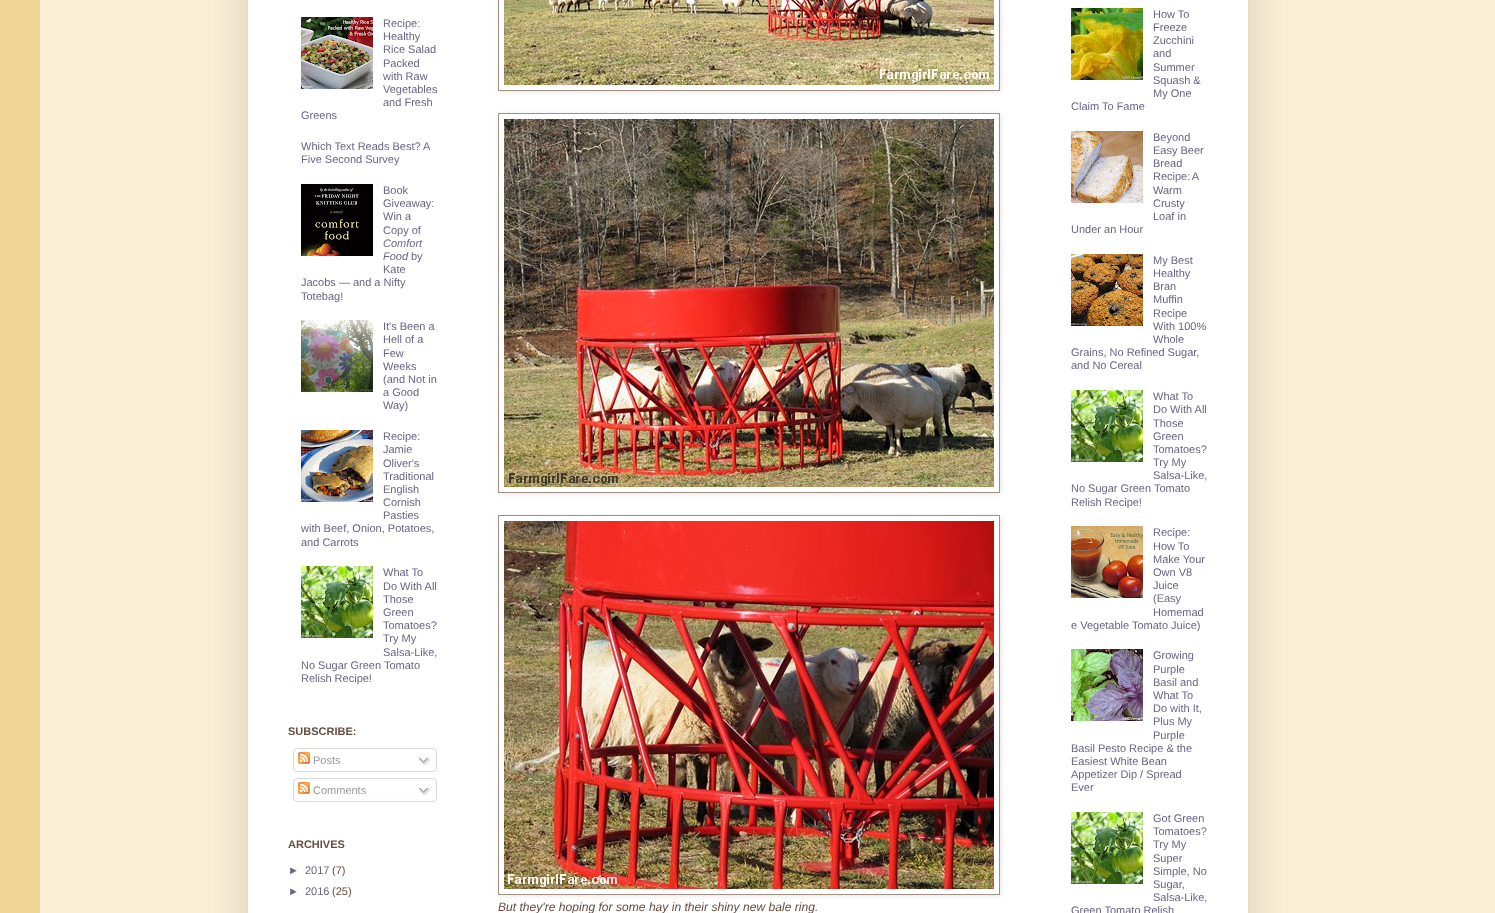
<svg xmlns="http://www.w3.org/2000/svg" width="1495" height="913">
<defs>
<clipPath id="clip1"><path d="M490 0h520v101h-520zm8-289h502v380h-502z" clip-rule="evenodd"/></clipPath>
<clipPath id="clip2"><path d="M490 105h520v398h-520zm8 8h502v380h-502z" clip-rule="evenodd"/></clipPath>
<clipPath id="clip3"><path d="M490 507h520v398h-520zm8 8h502v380h-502z" clip-rule="evenodd"/></clipPath>
</defs>
<rect width="100%" height="100%" fill="#f0d596"/>
<rect x="40" width="1455" height="913" fill="#faeed5"/>
<rect x="248" y="-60" width="1000" height="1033" fill="#00000026" filter="blur(20px)"/>
<rect x="248" width="1000" height="913" fill="#fff"/>
<image x="301" y="17" width="72" height="72" href="media/1.png"/>
<text x="383" y="27" style="font-family:Liberation Sans;font-size:11px;fill:#6b6385">Recipe:</text>
<text x="383" y="40" style="font-family:Liberation Sans;font-size:11px;fill:#6b6385">Healthy</text>
<text x="383" y="53" style="font-family:Liberation Sans;font-size:11px;fill:#6b6385">Rice Salad</text>
<text x="383" y="67" style="font-family:Liberation Sans;font-size:11px;fill:#6b6385">Packed</text>
<text x="383" y="80" style="font-family:Liberation Sans;font-size:11px;fill:#6b6385">with Raw</text>
<text x="383" y="93" style="font-family:Liberation Sans;font-size:11px;fill:#6b6385">Vegetables</text>
<text x="383" y="106" style="font-family:Liberation Sans;font-size:11px;fill:#6b6385">and Fresh</text>
<text x="301" y="119" style="font-family:Liberation Sans;font-size:11px;fill:#6b6385">Greens</text>
<text x="301" y="150" style="font-family:Liberation Sans;font-size:11px;fill:#6b6385">Which Text Reads Best? A</text>
<text x="301" y="163" style="font-family:Liberation Sans;font-size:11px;fill:#6b6385">Five Second Survey</text>
<image x="301" y="184" width="72" height="72" href="media/2.png"/>
<text x="383" y="194" style="font-family:Liberation Sans;font-size:11px;fill:#6b6385">Book</text>
<text x="383" y="207" style="font-family:Liberation Sans;font-size:11px;fill:#6b6385">Giveaway:</text>
<text x="383" y="220" style="font-family:Liberation Sans;font-size:11px;fill:#6b6385">Win a</text>
<text x="383" y="234" style="font-family:Liberation Sans;font-size:11px;fill:#6b6385">Copy of</text>
<text x="383" y="247" style="font-family:Liberation Sans;font-size:11px;font-style:italic;fill:#6b6385">Comfort</text>
<text x="383" y="260" style="font-family:Liberation Sans;font-size:11px;font-style:italic;fill:#6b6385">Food</text>
<text x="411" y="260" style="font-family:Liberation Sans;font-size:11px;fill:#6b6385">by</text>
<text x="383" y="273" style="font-family:Liberation Sans;font-size:11px;fill:#6b6385">Kate</text>
<text x="301" y="286" style="font-family:Liberation Sans;font-size:11px;fill:#6b6385">Jacobs — and a Nifty</text>
<text x="301" y="300" style="font-family:Liberation Sans;font-size:11px;fill:#6b6385">Totebag!</text>
<image x="301" y="320" width="72" height="72" href="media/3.png"/>
<text x="383" y="330" style="font-family:Liberation Sans;font-size:11px;fill:#6b6385">It's Been a</text>
<text x="383" y="343" style="font-family:Liberation Sans;font-size:11px;fill:#6b6385">Hell of a</text>
<text x="383" y="357" style="font-family:Liberation Sans;font-size:11px;fill:#6b6385">Few</text>
<text x="383" y="370" style="font-family:Liberation Sans;font-size:11px;fill:#6b6385">Weeks</text>
<text x="383" y="383" style="font-family:Liberation Sans;font-size:11px;fill:#6b6385">(and Not in</text>
<text x="383" y="396" style="font-family:Liberation Sans;font-size:11px;fill:#6b6385">a Good</text>
<text x="383" y="409" style="font-family:Liberation Sans;font-size:11px;fill:#6b6385">Way)</text>
<image x="301" y="430" width="72" height="72" href="media/4.png"/>
<text x="383" y="440" style="font-family:Liberation Sans;font-size:11px;fill:#6b6385">Recipe:</text>
<text x="383" y="453" style="font-family:Liberation Sans;font-size:11px;fill:#6b6385">Jamie</text>
<text x="383" y="467" style="font-family:Liberation Sans;font-size:11px;fill:#6b6385">Oliver's</text>
<text x="383" y="480" style="font-family:Liberation Sans;font-size:11px;fill:#6b6385">Traditional</text>
<text x="383" y="493" style="font-family:Liberation Sans;font-size:11px;fill:#6b6385">English</text>
<text x="383" y="506" style="font-family:Liberation Sans;font-size:11px;fill:#6b6385">Cornish</text>
<text x="383" y="519" style="font-family:Liberation Sans;font-size:11px;fill:#6b6385">Pasties</text>
<text x="301" y="532" style="font-family:Liberation Sans;font-size:11px;fill:#6b6385">with Beef, Onion, Potatoes,</text>
<text x="301" y="546" style="font-family:Liberation Sans;font-size:11px;fill:#6b6385">and Carrots</text>
<image x="301" y="566" width="72" height="72" href="media/5.png"/>
<text x="383" y="576" style="font-family:Liberation Sans;font-size:11px;fill:#6b6385">What To</text>
<text x="383" y="590" style="font-family:Liberation Sans;font-size:11px;fill:#6b6385">Do With All</text>
<text x="383" y="603" style="font-family:Liberation Sans;font-size:11px;fill:#6b6385">Those</text>
<text x="383" y="616" style="font-family:Liberation Sans;font-size:11px;fill:#6b6385">Green</text>
<text x="383" y="629" style="font-family:Liberation Sans;font-size:11px;fill:#6b6385">Tomatoes?</text>
<text x="383" y="642" style="font-family:Liberation Sans;font-size:11px;fill:#6b6385">Try My</text>
<text x="383" y="656" style="font-family:Liberation Sans;font-size:11px;fill:#6b6385">Salsa-Like,</text>
<text x="301" y="669" style="font-family:Liberation Sans;font-size:11px;fill:#6b6385">No Sugar Green Tomato</text>
<text x="301" y="682" style="font-family:Liberation Sans;font-size:11px;fill:#6b6385">Relish Recipe!</text>
<text x="288" y="735" style="font-family:Liberation Sans;font-size:11px;font-weight:bold;fill:#664c40">SUBSCRIBE:</text>
<image x="293" y="748" width="144" height="21" href="media/6.png"/>
<image x="298" y="752" width="12" height="12" href="media/7.png"/>
<text x="313" y="764" style="font-family:Liberation Sans;font-size:11px;fill:#999">Posts</text>
<image x="418" y="757" width="13" height="9" href="media/8.png"/>
<image x="293" y="769" width="144" height="3" href="media/9.png"/>
<image x="293" y="778" width="144" height="21" href="media/6.png"/>
<image x="298" y="782" width="12" height="12" href="media/7.png"/>
<text x="313" y="794" style="font-family:Liberation Sans;font-size:11px;fill:#999">Comments</text>
<image x="418" y="787" width="13" height="9" href="media/8.png"/>
<image x="293" y="799" width="144" height="3" href="media/9.png"/>
<text x="288" y="848" style="font-family:Liberation Sans;font-size:11px;font-weight:bold;fill:#664c40">ARCHIVES</text>
<text x="288" y="874" style="font-family:Liberation Sans;font-size:11px;fill:#6b6385">►</text>
<text x="305" y="874" style="font-family:Liberation Sans;font-size:11px;fill:#6b6385">2017</text>
<text x="332" y="874" style="font-family:Liberation Sans;font-size:11px;fill:#664c40">(7)</text>
<text x="288" y="895" style="font-family:Liberation Sans;font-size:11px;fill:#6b6385">►</text>
<text x="305" y="895" style="font-family:Liberation Sans;font-size:11px;fill:#6b6385">2016</text>
<text x="332" y="895" style="font-family:Liberation Sans;font-size:11px;fill:#664c40">(25)</text>
<image x="1071" y="8" width="72" height="72" href="media/10.png"/>
<text x="1153" y="18" style="font-family:Liberation Sans;font-size:11px;fill:#6b6385">How To</text>
<text x="1153" y="31" style="font-family:Liberation Sans;font-size:11px;fill:#6b6385">Freeze</text>
<text x="1153" y="44" style="font-family:Liberation Sans;font-size:11px;fill:#6b6385">Zucchini</text>
<text x="1153" y="57" style="font-family:Liberation Sans;font-size:11px;fill:#6b6385">and</text>
<text x="1153" y="71" style="font-family:Liberation Sans;font-size:11px;fill:#6b6385">Summer</text>
<text x="1153" y="84" style="font-family:Liberation Sans;font-size:11px;fill:#6b6385">Squash &amp;</text>
<text x="1153" y="97" style="font-family:Liberation Sans;font-size:11px;fill:#6b6385">My One</text>
<text x="1071" y="110" style="font-family:Liberation Sans;font-size:11px;fill:#6b6385">Claim To Fame</text>
<image x="1071" y="131" width="72" height="72" href="media/11.png"/>
<text x="1153" y="141" style="font-family:Liberation Sans;font-size:11px;fill:#6b6385">Beyond</text>
<text x="1153" y="154" style="font-family:Liberation Sans;font-size:11px;fill:#6b6385">Easy Beer</text>
<text x="1153" y="167" style="font-family:Liberation Sans;font-size:11px;fill:#6b6385">Bread</text>
<text x="1153" y="180" word-spacing="-1" style="font-family:Liberation Sans;font-size:11px;fill:#6b6385">Recipe: A</text>
<text x="1153" y="194" style="font-family:Liberation Sans;font-size:11px;fill:#6b6385">Warm</text>
<text x="1153" y="207" style="font-family:Liberation Sans;font-size:11px;fill:#6b6385">Crusty</text>
<text x="1153" y="220" style="font-family:Liberation Sans;font-size:11px;fill:#6b6385">Loaf in</text>
<text x="1071" y="233" style="font-family:Liberation Sans;font-size:11px;fill:#6b6385">Under an Hour</text>
<image x="1071" y="254" width="72" height="72" href="media/12.png"/>
<text x="1153" y="264" style="font-family:Liberation Sans;font-size:11px;fill:#6b6385">My Best</text>
<text x="1153" y="277" style="font-family:Liberation Sans;font-size:11px;fill:#6b6385">Healthy</text>
<text x="1153" y="290" style="font-family:Liberation Sans;font-size:11px;fill:#6b6385">Bran</text>
<text x="1153" y="303" style="font-family:Liberation Sans;font-size:11px;fill:#6b6385">Muffin</text>
<text x="1153" y="317" style="font-family:Liberation Sans;font-size:11px;fill:#6b6385">Recipe</text>
<text x="1153" y="330" style="font-family:Liberation Sans;font-size:11px;fill:#6b6385">With 100%</text>
<text x="1153" y="343" style="font-family:Liberation Sans;font-size:11px;fill:#6b6385">Whole</text>
<text x="1071" y="356" style="font-family:Liberation Sans;font-size:11px;fill:#6b6385">Grains, No Refined Sugar,</text>
<text x="1071" y="369" style="font-family:Liberation Sans;font-size:11px;fill:#6b6385">and No Cereal</text>
<image x="1071" y="390" width="72" height="72" href="media/5.png"/>
<text x="1153" y="400" style="font-family:Liberation Sans;font-size:11px;fill:#6b6385">What To</text>
<text x="1153" y="413" style="font-family:Liberation Sans;font-size:11px;fill:#6b6385">Do With All</text>
<text x="1153" y="427" style="font-family:Liberation Sans;font-size:11px;fill:#6b6385">Those</text>
<text x="1153" y="440" style="font-family:Liberation Sans;font-size:11px;fill:#6b6385">Green</text>
<text x="1153" y="453" style="font-family:Liberation Sans;font-size:11px;fill:#6b6385">Tomatoes?</text>
<text x="1153" y="466" style="font-family:Liberation Sans;font-size:11px;fill:#6b6385">Try My</text>
<text x="1153" y="479" style="font-family:Liberation Sans;font-size:11px;fill:#6b6385">Salsa-Like,</text>
<text x="1071" y="492" style="font-family:Liberation Sans;font-size:11px;fill:#6b6385">No Sugar Green Tomato</text>
<text x="1071" y="506" style="font-family:Liberation Sans;font-size:11px;fill:#6b6385">Relish Recipe!</text>
<image x="1071" y="526" width="72" height="72" href="media/13.png"/>
<text x="1153" y="536" style="font-family:Liberation Sans;font-size:11px;fill:#6b6385">Recipe:</text>
<text x="1153" y="550" style="font-family:Liberation Sans;font-size:11px;fill:#6b6385">How To</text>
<text x="1153" y="563" style="font-family:Liberation Sans;font-size:11px;fill:#6b6385">Make Your</text>
<text x="1153" y="576" style="font-family:Liberation Sans;font-size:11px;fill:#6b6385">Own V8</text>
<text x="1153" y="589" style="font-family:Liberation Sans;font-size:11px;fill:#6b6385">Juice</text>
<text x="1153" y="602" style="font-family:Liberation Sans;font-size:11px;fill:#6b6385">(Easy</text>
<text x="1153" y="616" style="font-family:Liberation Sans;font-size:11px;fill:#6b6385">Homemad</text>
<text x="1071" y="629" style="font-family:Liberation Sans;font-size:11px;fill:#6b6385">e Vegetable Tomato Juice)</text>
<image x="1071" y="649" width="72" height="72" href="media/14.png"/>
<text x="1153" y="659" style="font-family:Liberation Sans;font-size:11px;fill:#6b6385">Growing</text>
<text x="1153" y="673" style="font-family:Liberation Sans;font-size:11px;fill:#6b6385">Purple</text>
<text x="1153" y="686" style="font-family:Liberation Sans;font-size:11px;fill:#6b6385">Basil and</text>
<text x="1153" y="699" style="font-family:Liberation Sans;font-size:11px;fill:#6b6385">What To</text>
<text x="1153" y="712" style="font-family:Liberation Sans;font-size:11px;fill:#6b6385">Do with It,</text>
<text x="1153" y="725" style="font-family:Liberation Sans;font-size:11px;fill:#6b6385">Plus My</text>
<text x="1153" y="739" style="font-family:Liberation Sans;font-size:11px;fill:#6b6385">Purple</text>
<text x="1071" y="752" style="font-family:Liberation Sans;font-size:11px;fill:#6b6385">Basil Pesto Recipe &amp; the</text>
<text x="1071" y="765" style="font-family:Liberation Sans;font-size:11px;fill:#6b6385">Easiest White Bean</text>
<text x="1071" y="778" style="font-family:Liberation Sans;font-size:11px;fill:#6b6385">Appetizer Dip / Spread</text>
<text x="1071" y="791" style="font-family:Liberation Sans;font-size:11px;fill:#6b6385">Ever</text>
<image x="1071" y="812" width="72" height="72" href="media/5.png"/>
<text x="1153" y="822" style="font-family:Liberation Sans;font-size:11px;fill:#6b6385">Got Green</text>
<text x="1153" y="835" style="font-family:Liberation Sans;font-size:11px;fill:#6b6385">Tomatoes?</text>
<text x="1153" y="848" style="font-family:Liberation Sans;font-size:11px;fill:#6b6385">Try My</text>
<text x="1153" y="862" style="font-family:Liberation Sans;font-size:11px;fill:#6b6385">Super</text>
<text x="1153" y="875" style="font-family:Liberation Sans;font-size:11px;fill:#6b6385">Simple, No</text>
<text x="1153" y="888" style="font-family:Liberation Sans;font-size:11px;fill:#6b6385">Sugar,</text>
<text x="1153" y="901" style="font-family:Liberation Sans;font-size:11px;fill:#6b6385">Salsa-Like,</text>
<text x="1071" y="914" style="font-family:Liberation Sans;font-size:11px;fill:#6b6385">Green Tomato Relish</text>
<g clip-path="url(#clip1)">
<rect x="499" y="-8" width="502" height="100" fill="#0000001a" filter="blur(2.5px)"/>
</g>
<rect x="498.5" y="-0.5" width="501" height="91" fill="none" stroke="#a39084"/>
<image x="504" y="0" width="490" height="85" href="media/15.png"/>
<g clip-path="url(#clip2)">
<rect x="499" y="114" width="502" height="380" fill="#0000001a" filter="blur(2.5px)"/>
</g>
<rect x="498.5" y="113.5" width="501" height="379" fill="none" stroke="#a39084"/>
<image x="504" y="119" width="490" height="368" href="media/16.png"/>
<g clip-path="url(#clip3)">
<rect x="499" y="516" width="502" height="380" fill="#0000001a" filter="blur(2.5px)"/>
</g>
<rect x="498.5" y="515.5" width="501" height="379" fill="none" stroke="#a39084"/>
<image x="504" y="521" width="490" height="368" href="media/17.png"/>
<text x="498" y="911" style="font-family:Liberation Sans;font-size:12.1px;font-style:italic;fill:#664c40">But they're hoping for some hay in their shiny new bale ring.</text>
</svg>
